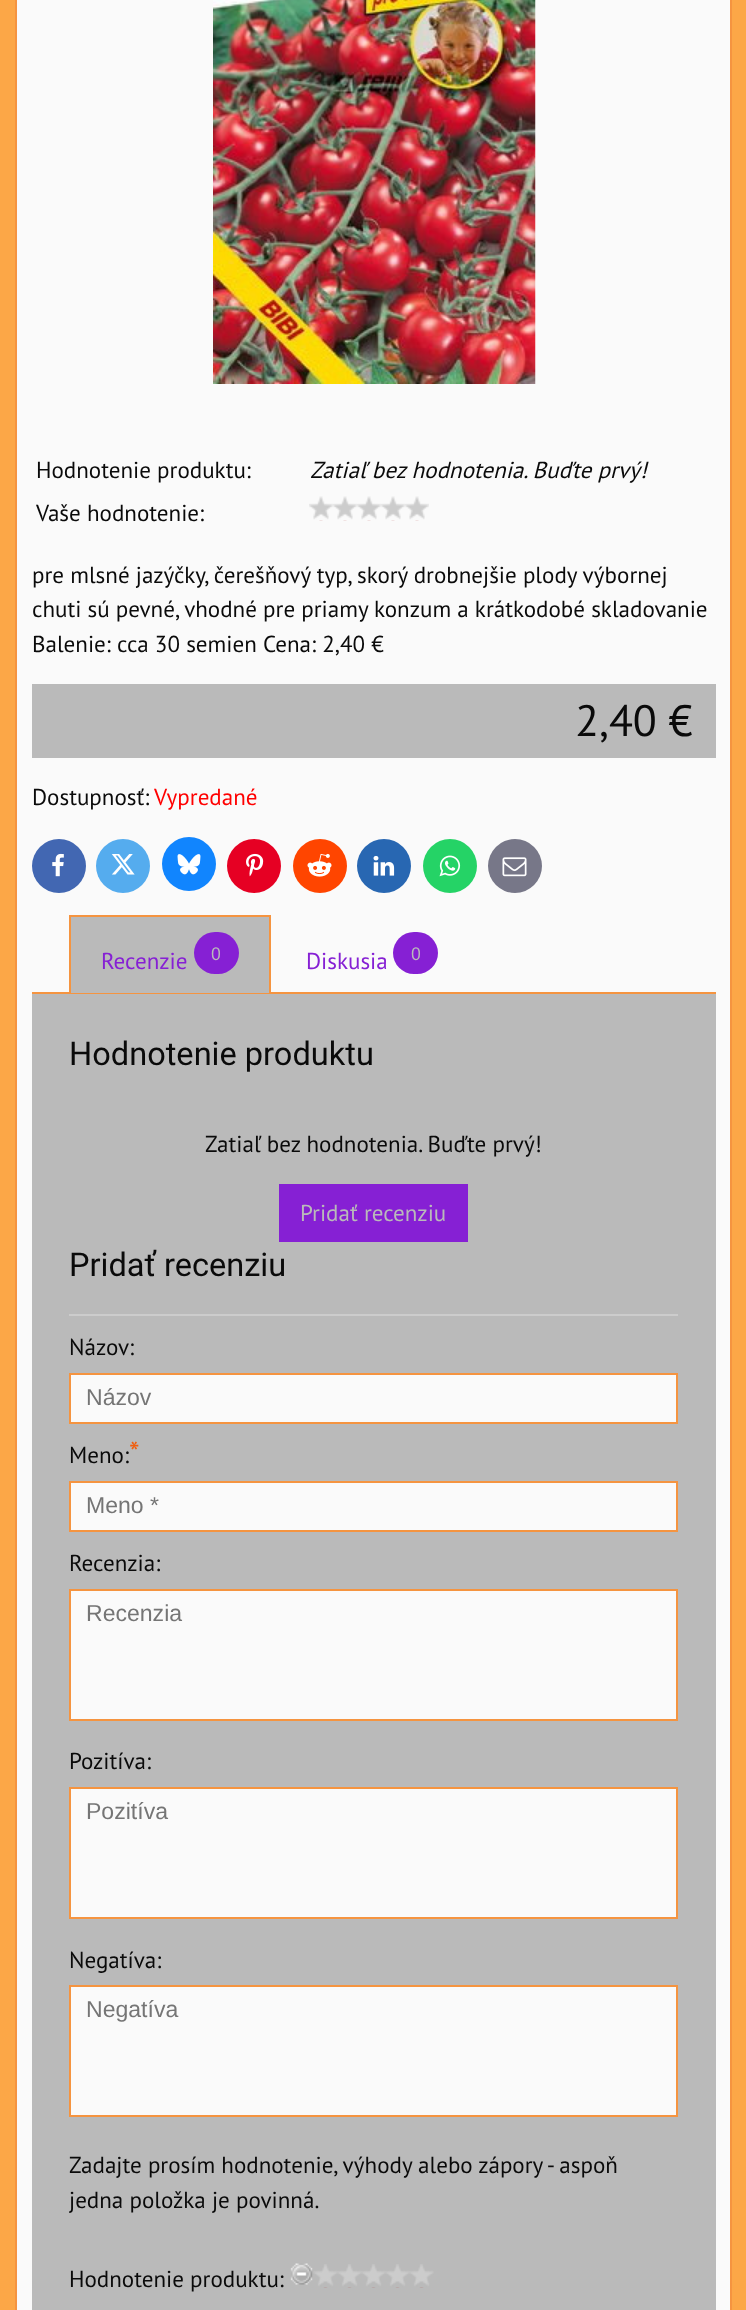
<svg xmlns="http://www.w3.org/2000/svg" width="746" height="2310">
<rect width="100%" height="100%" fill="#fca747"/>
<rect x="16" y="-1" width="715" height="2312" fill="#fafafa" stroke="#f59440" stroke-width="2"/>
<image x="213" y="0" width="323" height="384" href="media/1.png"/>
<text x="36" y="478" style="font-family:PT Sans;font-size:23.05px;fill:#0a0a0a">Hodnotenie produktu:</text>
<text x="310" y="478" style="font-family:PT Sans;font-size:23.05px;font-style:italic;fill:#0a0a0a">Zatiaľ bez hodnotenia. Buďte prvý!</text>
<text x="36" y="521" style="font-family:PT Sans;font-size:23.05px;fill:#0a0a0a">Vaše hodnotenie:</text>
<image x="309" y="496" width="120" height="25" href="media/2.png"/>
<text x="32" y="583" style="font-family:PT Sans;font-size:23.05px;fill:#0a0a0a">pre mlsné jazýčky, čerešňový typ, skorý drobnejšie plody výbornej</text>
<text x="32" y="617" style="font-family:PT Sans;font-size:23.05px;fill:#0a0a0a">chuti sú pevné, vhodné pre priamy konzum a krátkodobé skladovanie</text>
<text x="32" y="652" style="font-family:PT Sans;font-size:23.05px;fill:#0a0a0a">Balenie: cca 30 semien Cena: 2,40 €</text>
<rect x="32" y="684" width="684" height="74" fill="#bababa"/>
<text x="575" y="736" style="font-family:PT Sans;font-size:44px;fill:#0a0a0a">2,40 €</text>
<text x="32" y="805" style="font-family:PT Sans;font-size:23.05px;fill:#0a0a0a">Dostupnosť:</text>
<text x="154" y="805" style="font-family:PT Sans;font-size:23.05px;fill:#f00">Vypredané</text>
<circle cx="59" cy="866" r="27" fill="#4267b2"/>
<image x="52" y="853" width="12" height="24" href="media/3.png"/>
<circle cx="123" cy="866" r="27" fill="#55acee"/>
<image x="111" y="854" width="24" height="21" href="media/4.png"/>
<circle cx="189" cy="864" r="27" fill="#1185fe"/>
<image x="177" y="854" width="24" height="21" href="media/5.png"/>
<circle cx="254" cy="866" r="27" fill="#e60023"/>
<image x="246" y="853" width="18" height="24" href="media/6.png"/>
<circle cx="320" cy="866" r="27" fill="#ff4500"/>
<image x="307" y="853" width="25" height="24" href="media/7.png"/>
<circle cx="384" cy="866" r="27" fill="#2867b2"/>
<image x="373" y="855" width="22" height="21" href="media/8.png"/>
<circle cx="450" cy="866" r="27" fill="#25d366"/>
<image x="439" y="855" width="22" height="22" href="media/9.png"/>
<circle cx="515" cy="866" r="27" fill="#778"/>
<image x="502" y="857" width="25" height="20" href="media/10.png"/>
<rect x="32" y="992" width="684" height="2" fill="#f59440"/>
<rect x="71" y="917" width="198" height="76" fill="#bababa"/>
<rect x="69" y="915" width="201" height="2" fill="#f59440"/>
<rect x="269" y="915" width="2" height="78" fill="#f59440"/>
<rect x="69" y="915" width="2" height="78" fill="#f59440"/>
<text x="101" y="969" style="font-family:PT Sans;font-size:23.05px;fill:#8620d4">Recenzie</text>
<rect x="194" y="932" width="45" height="42" rx="21" fill="#8620d4"/>
<text x="211" y="960" style="font-family:PT Sans;font-size:18px;fill:#bababa">0</text>
<text x="306" y="969" style="font-family:PT Sans;font-size:23.05px;fill:#8620d4">Diskusia</text>
<rect x="393" y="932" width="45" height="42" rx="21" fill="#8620d4"/>
<text x="411" y="960" style="font-family:PT Sans;font-size:18px;fill:#bababa">0</text>
<rect x="32" y="994" width="684" height="1316" fill="#bababa"/>
<text x="69" y="1065" style="font-family:Roboto;font-size:32.6px;fill:#0a0a0a">Hodnotenie produktu</text>
<text x="205" y="1152" style="font-family:PT Sans;font-size:23.05px;fill:#0a0a0a">Zatiaľ bez hodnotenia. Buďte prvý!</text>
<rect x="279" y="1184" width="189" height="58" fill="#8620d4"/>
<text x="300" y="1221" style="font-family:PT Sans;font-size:23.05px;fill:#bababa">Pridať recenziu</text>
<text x="69" y="1276" style="font-family:Roboto;font-size:32.6px;fill:#0a0a0a">Pridať recenziu</text>
<rect x="69" y="1314" width="609" height="2" fill="#ccc"/>
<text x="69" y="1355" style="font-family:PT Sans;font-size:23.05px;fill:#0a0a0a">Názov:</text>
<rect x="70" y="1374" width="607" height="49" fill="#fafafa" stroke="#f59440" stroke-width="2"/>
<text x="86" y="1405" style="font-family:Liberation Sans;font-size:23.05px;fill:#757575">Názov</text>
<text x="69" y="1463" style="font-family:PT Sans;font-size:23.05px;fill:#0a0a0a">Meno:</text>
<text x="129" y="1463" style="font-family:PT Sans;font-size:30px;fill:#f05e0f">*</text>
<rect x="70" y="1482" width="607" height="49" fill="#fafafa" stroke="#f59440" stroke-width="2"/>
<text x="86" y="1513" style="font-family:Liberation Sans;font-size:23.05px;fill:#757575">Meno *</text>
<text x="69" y="1571" style="font-family:PT Sans;font-size:23.05px;fill:#0a0a0a">Recenzia:</text>
<rect x="70" y="1590" width="607" height="130" fill="#fafafa" stroke="#f59440" stroke-width="2"/>
<text x="86" y="1621" style="font-family:Liberation Sans;font-size:23.05px;fill:#757575">Recenzia</text>
<text x="69" y="1769" style="font-family:PT Sans;font-size:23.05px;fill:#0a0a0a">Pozitíva:</text>
<rect x="70" y="1788" width="607" height="130" fill="#fafafa" stroke="#f59440" stroke-width="2"/>
<text x="86" y="1819" style="font-family:Liberation Sans;font-size:23.05px;fill:#757575">Pozitíva</text>
<text x="69" y="1968" style="font-family:PT Sans;font-size:23.05px;fill:#0a0a0a">Negatíva:</text>
<rect x="70" y="1986" width="607" height="130" fill="#fafafa" stroke="#f59440" stroke-width="2"/>
<text x="86" y="2017" style="font-family:Liberation Sans;font-size:23.05px;fill:#757575">Negatíva</text>
<text x="69" y="2173" style="font-family:PT Sans;font-size:23.05px;fill:#0a0a0a">Zadajte prosím hodnotenie, výhody alebo zápory - aspoň</text>
<text x="69" y="2208" style="font-family:PT Sans;font-size:23.05px;fill:#0a0a0a">jedna položka je povinná.</text>
<text x="69" y="2287" style="font-family:PT Sans;font-size:23.05px;fill:#0a0a0a">Hodnotenie produktu:</text>
<image x="290" y="2263" width="23" height="22" href="media/11.png"/>
<image x="313" y="2264" width="121" height="24" href="media/12.png"/>
</svg>
